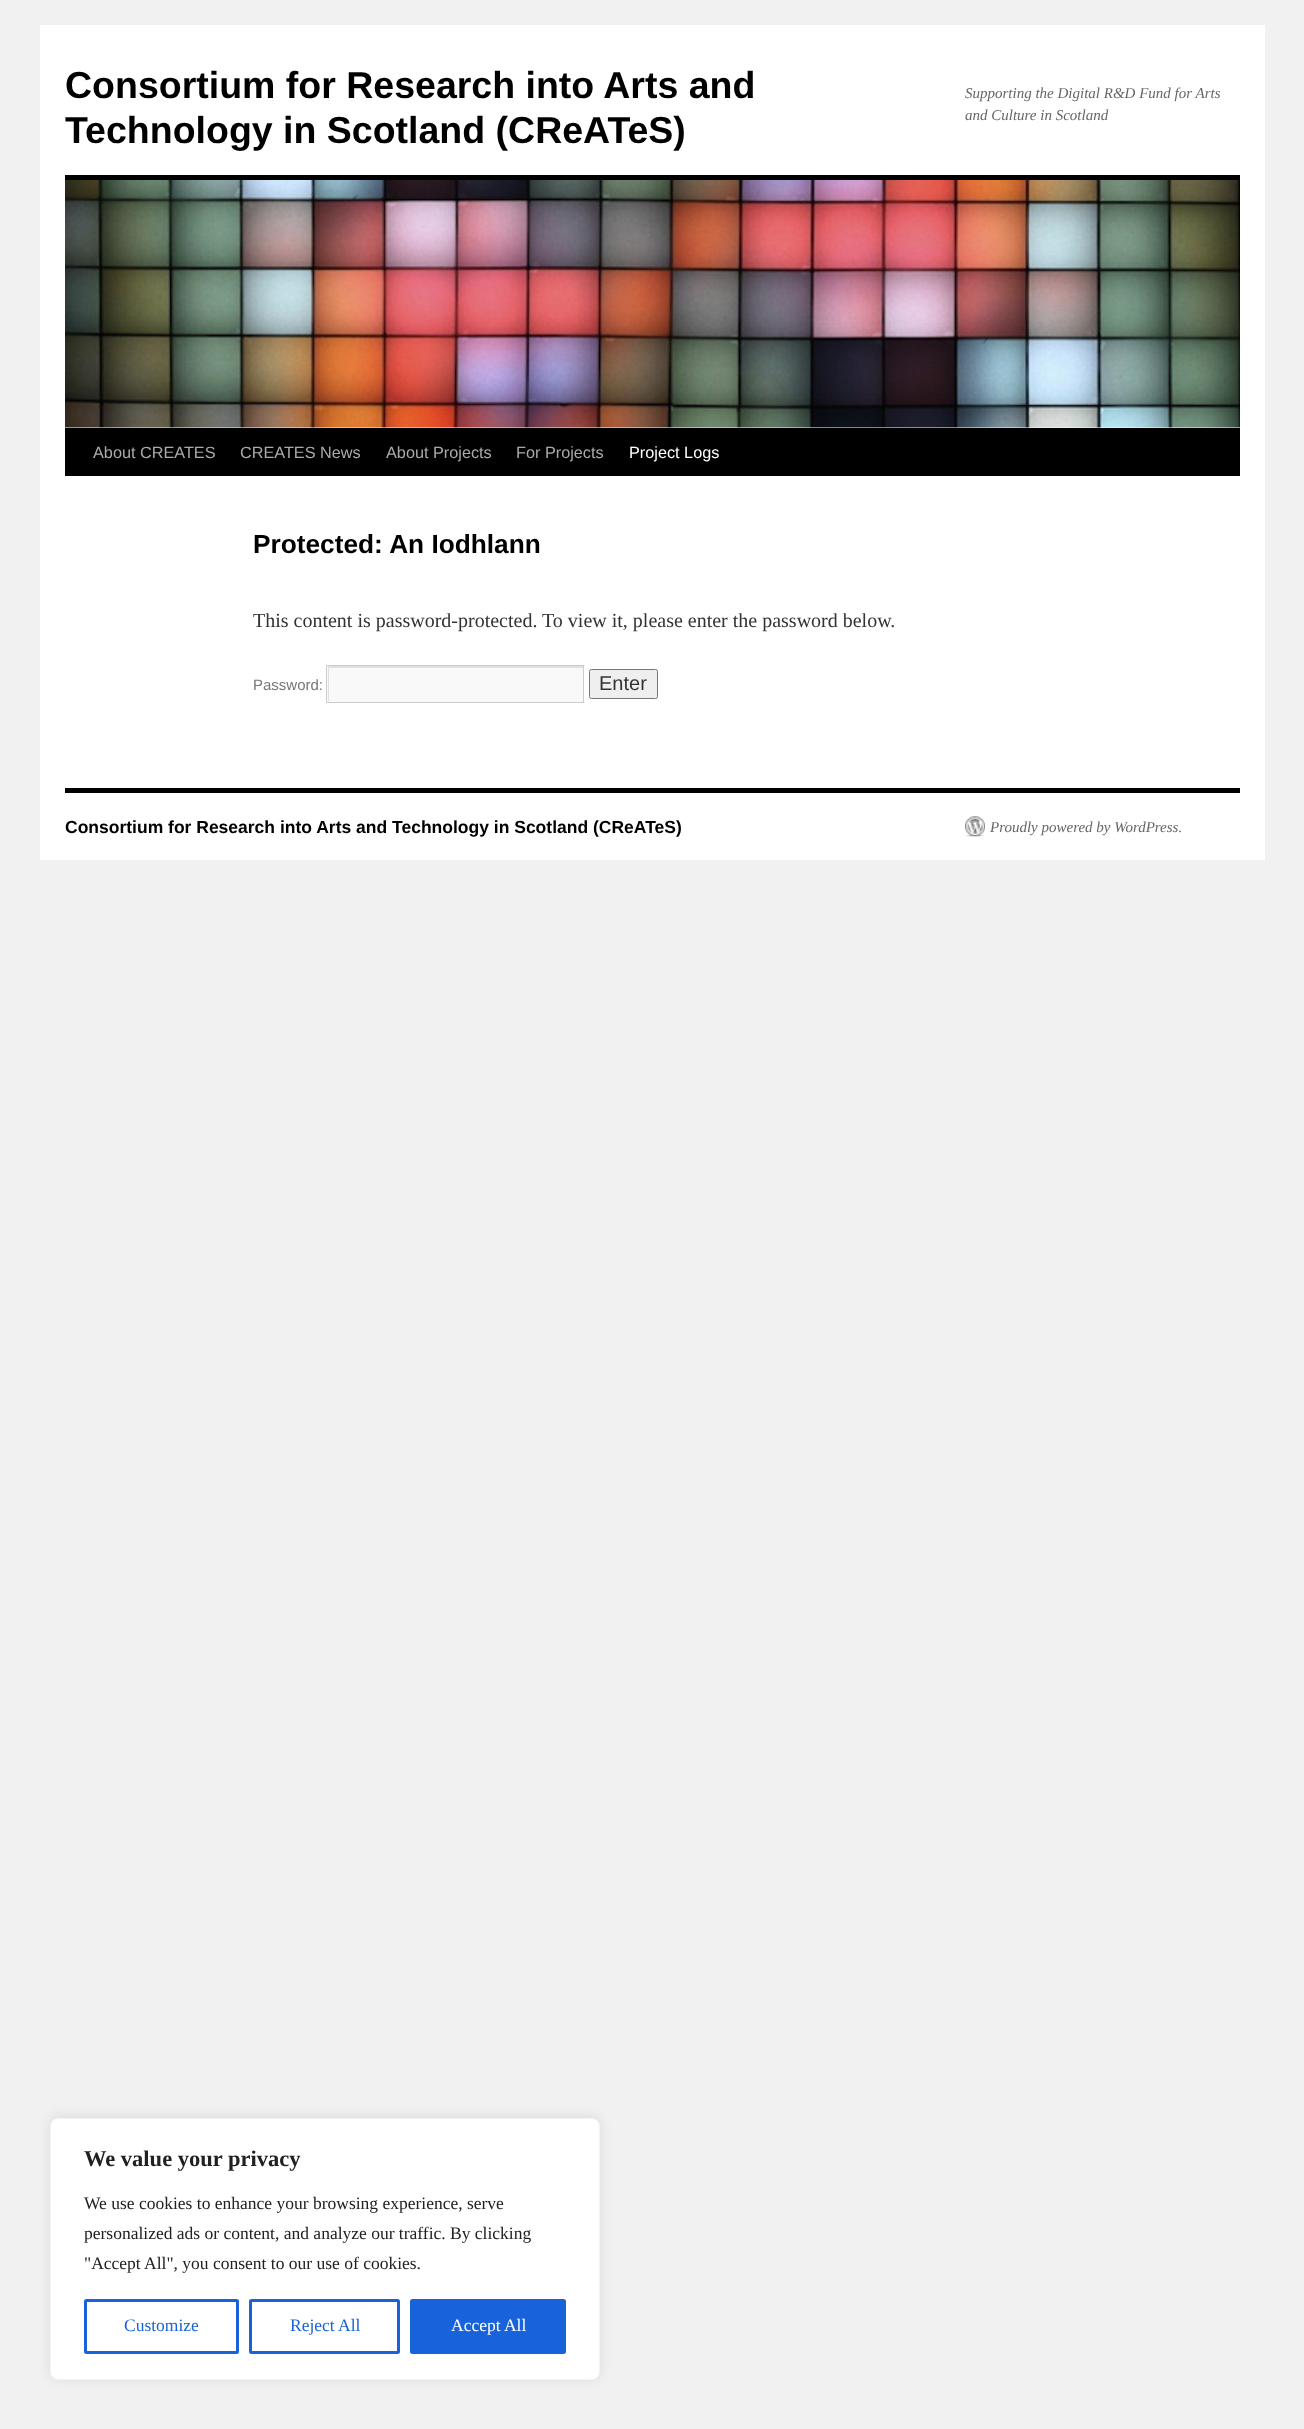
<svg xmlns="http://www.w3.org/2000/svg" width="1304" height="2429">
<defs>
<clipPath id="clip1"><rect x="328" y="666" width="255" height="35"/></clipPath>
</defs>
<rect width="100%" height="100%" fill="#f1f1f1"/>
<rect x="40" y="25" width="1225" height="835" fill="#fff"/>
<text x="65" y="98" style="font-family:Liberation Sans;font-size:37.5px;font-weight:bold;fill:#000">Consortium for Research into Arts and</text>
<text x="65" y="143" style="font-family:Liberation Sans;font-size:37.5px;font-weight:bold;fill:#000">Technology in Scotland (CReATeS)</text>
<text x="965" y="98" style="font-family:Liberation Serif;font-size:15px;font-style:italic;fill:#666">Supporting the Digital R&amp;D Fund for Arts</text>
<text x="965" y="120" style="font-family:Liberation Serif;font-size:15px;font-style:italic;fill:#666">and Culture in Scotland</text>
<rect x="65" y="175" width="1175" height="5" fill="#000"/>
<rect x="65" y="428" width="1175" height="48" fill="#000"/>
<image x="65" y="180" width="1175" height="248" href="media/1.png"/>
<text x="93" y="458" style="font-family:Liberation Sans;font-size:16.25px;fill:#aaa">About CREATES</text>
<text x="240" y="458" style="font-family:Liberation Sans;font-size:16.25px;fill:#aaa">CREATES News</text>
<text x="386" y="458" style="font-family:Liberation Sans;font-size:16.25px;fill:#aaa">About Projects</text>
<text x="516" y="458" style="font-family:Liberation Sans;font-size:16.25px;fill:#aaa">For Projects</text>
<text x="629" y="458" style="font-family:Liberation Sans;font-size:16.25px;fill:#fff">Project Logs</text>
<text x="253" y="553" style="font-family:Liberation Sans;font-size:26.25px;font-weight:bold;fill:#000">Protected: An Iodhlann</text>
<text x="253" y="627" style="font-family:Liberation Serif;font-size:20px;fill:#333">This content is password-protected. To view it, please enter the password below.</text>
<text x="253" y="690" style="font-family:Liberation Sans;font-size:15px;fill:#777">Password:</text>
<rect x="327" y="666" width="256" height="36" fill="#f9f9f9"/>
<g clip-path="url(#clip1)">
<path d="M204 542h502v283h-502zm125 126h255v34h-255z" fill="#e0e0e0" fill-rule="evenodd"/>
</g>
<rect x="326.5" y="665.5" width="257" height="37" fill="none" stroke="#ccc"/>
<rect x="589.5" y="669.5" width="68" height="29" rx="2" fill="#efefef" stroke="#767676"/>
<text x="599" y="690" style="font-family:Liberation Sans;font-size:20px;fill:#333">Enter</text>
<rect x="65" y="788" width="1175" height="5" fill="#000"/>
<text x="65" y="833" style="font-family:Liberation Sans;font-size:17.5px;font-weight:bold;fill:#000">Consortium for Research into Arts and Technology in Scotland (CReATeS)</text>
<image x="965" y="816" width="20" height="21" href="media/2.png"/>
<text x="990" y="832" style="font-family:Liberation Serif;font-size:15px;font-style:italic;fill:#666">Proudly powered by WordPress.</text>
<rect x="50" y="2116" width="550" height="263" rx="8" fill="#acabab4d" filter="blur(6px)"/>
<rect x="50.5" y="2118.5" width="549" height="261" rx="7.5" fill="#fff" stroke="#f4f4f4"/>
<text x="84" y="2166" style="font-family:Liberation Serif;font-size:22.5px;font-weight:bold;fill:#212121">We value your privacy</text>
<text x="84" y="2209" style="font-family:Liberation Serif;font-size:17.5px;fill:#212121">We use cookies to enhance your browsing experience, serve</text>
<text x="84" y="2239" style="font-family:Liberation Serif;font-size:17.5px;fill:#212121">personalized ads or content, and analyze our traffic. By clicking</text>
<text x="84" y="2269" style="font-family:Liberation Serif;font-size:17.5px;fill:#212121">"Accept All", you consent to our use of cookies.</text>
<rect x="85.5" y="2300.5" width="152" height="52" rx="1" fill="none" stroke="#1863dc" stroke-width="3"/>
<text x="124" y="2331" style="font-family:Liberation Serif;font-size:17.5px;fill:#1863dc">Customize</text>
<rect x="250.5" y="2300.5" width="148" height="52" rx="1" fill="none" stroke="#1863dc" stroke-width="3"/>
<text x="290" y="2331" style="font-family:Liberation Serif;font-size:17.5px;fill:#1863dc">Reject All</text>
<rect x="411.5" y="2300.5" width="153" height="52" rx="1" fill="#1863dc" stroke="#1863dc" stroke-width="3"/>
<text x="451" y="2331" style="font-family:Liberation Serif;font-size:17.5px;fill:#fff">Accept All</text>
</svg>
